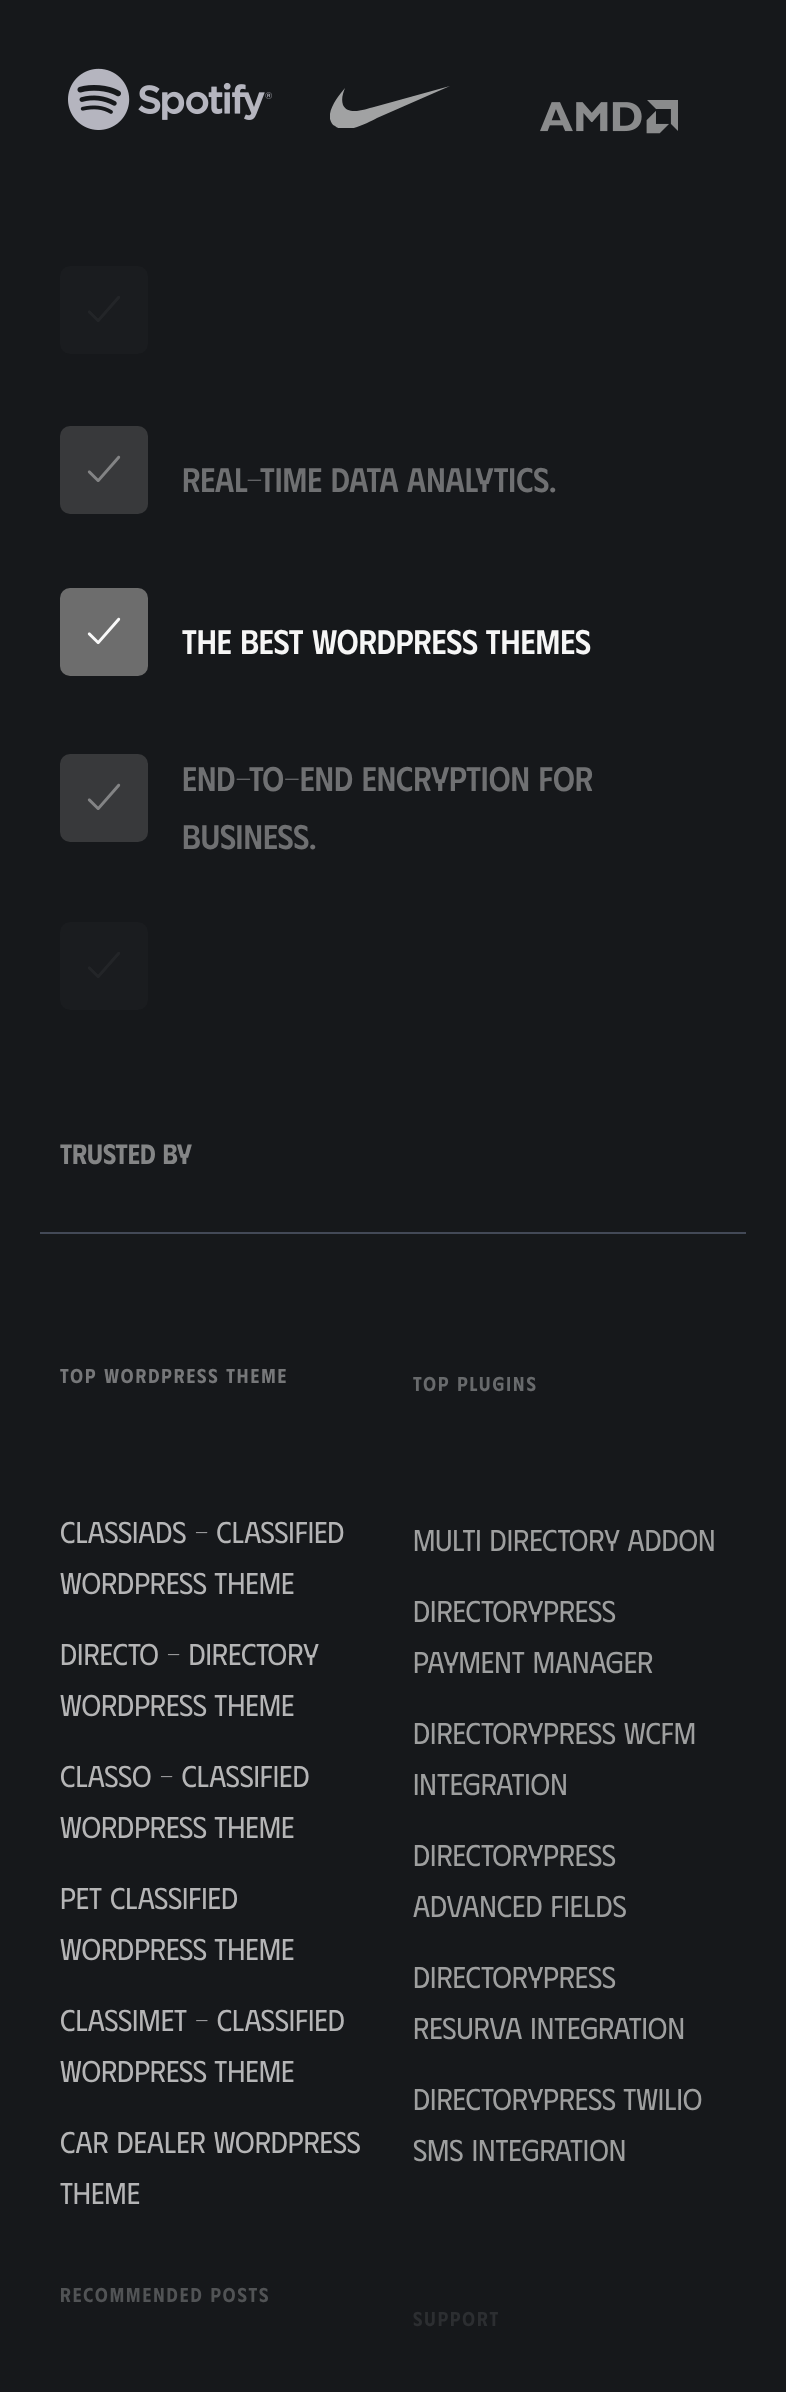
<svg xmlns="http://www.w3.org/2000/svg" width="786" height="2392">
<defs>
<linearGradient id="g1" gradientUnits="userSpaceOnUse" x1="-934" y1="731" x2="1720" y2="2263"><stop offset="0.78" stop-color="#16181b"/><stop offset="1" stop-color="#1d2539"/></linearGradient>
<clipPath id="clip1"><rect x="330" y="86" width="120" height="42"/></clipPath>
</defs>
<rect width="100%" height="100%" fill="#fff"/>
<rect width="786" height="2392" fill="url(#g1)"/>
<image x="68" y="68" width="204" height="62" href="media/1.png"/>
<g clip-path="url(#clip1)">
<path d="M345 88c-6 7-17 21-15 31c1 3 2 6 5 7c11 9 32-3 42-8l73-32l-76 21c-8 2-26 9-31-2c-2-6 0-12 2-17z" fill="#a1a2a3" fill-rule="evenodd"/>
</g>
<image x="540" y="100" width="138" height="34" href="media/2.png"/>
<rect x="60" y="266" width="88" height="88" rx="10" fill="#1a1c1f"/>
<image x="88" y="296" width="32" height="26" href="media/3.png"/>
<rect x="60" y="426" width="88" height="88" rx="10" fill="#38393b"/>
<image x="87" y="455" width="34" height="27" href="media/4.png"/>
<text x="182" y="492" style="font-family:Phudu;font-size:34px;font-weight:500;fill:#6f7072">Real-time Data Analytics.</text>
<rect x="60" y="588" width="88" height="88" rx="10" fill="#6d6d6d"/>
<image x="87" y="617" width="34" height="28" href="media/5.png"/>
<text x="182" y="654" style="font-family:Phudu;font-size:34px;font-weight:500;fill:#f6f6f6">The Best WordPress Themes</text>
<rect x="60" y="754" width="88" height="88" rx="10" fill="#38393b"/>
<image x="87" y="783" width="34" height="27" href="media/4.png"/>
<text x="182" y="791" style="font-family:Phudu;font-size:34px;font-weight:500;fill:#6f7072">End-to-end encryption for</text>
<text x="182" y="849" style="font-family:Phudu;font-size:34px;font-weight:500;fill:#6f7072">business.</text>
<rect x="60" y="922" width="88" height="88" rx="10" fill="#1a1c1f"/>
<image x="88" y="952" width="32" height="26" href="media/3.png"/>
<rect x="40" y="1232" width="706" height="2" fill="#434957"/>
<text x="60" y="1164" style="font-family:Phudu;font-size:28px;font-weight:600;fill:#848586">Trusted by</text>
<text x="60" y="1383" style="font-family:Phudu;font-size:20px;font-weight:600;letter-spacing:2px;fill:#767779">TOP WORDPRESS THEME</text>
<text x="60" y="1543" style="font-family:Phudu;font-size:30px;fill:#b5b5b6">ClassiAds – Classified</text>
<text x="60" y="1594" style="font-family:Phudu;font-size:30px;fill:#b5b5b6">WordPress Theme</text>
<text x="60" y="1665" style="font-family:Phudu;font-size:30px;fill:#b5b5b6">Directo – Directory</text>
<text x="60" y="1716" style="font-family:Phudu;font-size:30px;fill:#b5b5b6">WordPress Theme</text>
<text x="60" y="1787" style="font-family:Phudu;font-size:30px;fill:#b5b5b6">Classo – Classified</text>
<text x="60" y="1838" style="font-family:Phudu;font-size:30px;fill:#b5b5b6">WordPress Theme</text>
<text x="60" y="1909" style="font-family:Phudu;font-size:30px;fill:#b5b5b6">Pet Classified</text>
<text x="60" y="1960" style="font-family:Phudu;font-size:30px;fill:#b5b5b6">WordPress Theme</text>
<text x="60" y="2031" style="font-family:Phudu;font-size:30px;fill:#b5b5b6">Classimet – Classified</text>
<text x="60" y="2082" style="font-family:Phudu;font-size:30px;fill:#b5b5b6">WordPress Theme</text>
<text x="60" y="2153" style="font-family:Phudu;font-size:30px;fill:#b5b5b6">Car Dealer WordPress</text>
<text x="60" y="2204" style="font-family:Phudu;font-size:30px;fill:#b5b5b6">Theme</text>
<text x="413" y="1391" style="font-family:Phudu;font-size:20px;font-weight:600;letter-spacing:2px;fill:#686a6c">TOP PLUGINS</text>
<text x="413" y="1551" style="font-family:Phudu;font-size:30px;fill:#9e9f9f">Multi Directory Addon</text>
<text x="413" y="1622" style="font-family:Phudu;font-size:30px;fill:#9e9f9f">DirectoryPress</text>
<text x="413" y="1673" style="font-family:Phudu;font-size:30px;fill:#9e9f9f">Payment Manager</text>
<text x="413" y="1744" style="font-family:Phudu;font-size:30px;fill:#9e9f9f">DirectoryPress WCFM</text>
<text x="413" y="1795" style="font-family:Phudu;font-size:30px;fill:#9e9f9f">Integration</text>
<text x="413" y="1866" style="font-family:Phudu;font-size:30px;fill:#9e9f9f">DirectoryPress</text>
<text x="413" y="1917" style="font-family:Phudu;font-size:30px;fill:#9e9f9f">Advanced Fields</text>
<text x="413" y="1988" style="font-family:Phudu;font-size:30px;fill:#9e9f9f">DirectoryPress</text>
<text x="413" y="2039" style="font-family:Phudu;font-size:30px;fill:#9e9f9f">Resurva Integration</text>
<text x="413" y="2110" style="font-family:Phudu;font-size:30px;fill:#9e9f9f">DirectoryPress Twilio</text>
<text x="413" y="2161" style="font-family:Phudu;font-size:30px;fill:#9e9f9f">SMS Integration</text>
<text x="60" y="2302" style="font-family:Phudu;font-size:20px;font-weight:600;letter-spacing:2px;fill:#515355">RECOMMENDED POSTS</text>
<text x="413" y="2326" style="font-family:Phudu;font-size:20px;font-weight:600;letter-spacing:2px;fill:#2c2e31">SUPPORT</text>
</svg>
